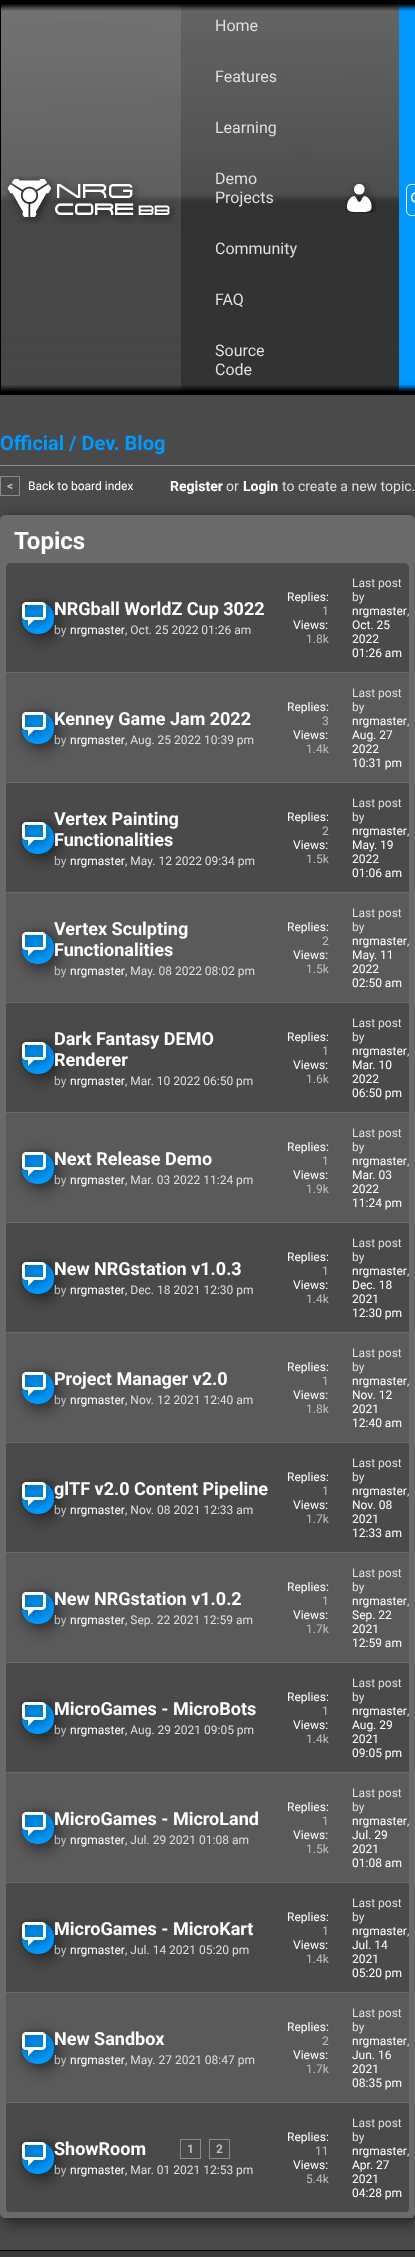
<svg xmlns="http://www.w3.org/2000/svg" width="415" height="2257">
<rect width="100%" height="100%" fill="#fff"/>
<image x="1" y="0" width="180" height="395" href="media/1.png"/>
<rect width="1" height="395" fill="#000"/>
<image x="5" y="176" width="170" height="48" href="media/2.png"/>
<image x="181" y="0" width="132" height="395" href="media/3.png"/>
<text x="215" y="31" style="font-family:Roboto;font-size:16px;fill:#dfdfdf">Home</text>
<text x="215" y="82" style="font-family:Roboto;font-size:16px;fill:#dfdfdf">Features</text>
<text x="215" y="133" style="font-family:Roboto;font-size:16px;fill:#dfdfdf">Learning</text>
<text x="215" y="184" style="font-family:Roboto;font-size:16px;fill:#dfdfdf">Demo</text>
<text x="215" y="203" style="font-family:Roboto;font-size:16px;fill:#dfdfdf">Projects</text>
<text x="215" y="254" style="font-family:Roboto;font-size:16px;fill:#dfdfdf">Community</text>
<text x="215" y="305" style="font-family:Roboto;font-size:16px;fill:#dfdfdf">FAQ</text>
<text x="215" y="356" style="font-family:Roboto;font-size:16px;fill:#dfdfdf">Source</text>
<text x="215" y="375" style="font-family:Roboto;font-size:16px;fill:#dfdfdf">Code</text>
<image x="313" y="0" width="86" height="395" href="media/4.png"/>
<image x="345" y="182" width="31" height="31" href="media/5.png"/>
<image x="399" y="0" width="16" height="395" href="media/6.png"/>
<image x="411" y="192" width="4" height="11" href="media/7.png"/>
<rect x="406.5" y="184.5" width="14" height="31" rx="4.5" fill="none" stroke="#fff"/>
<rect x="4" y="399" width="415" height="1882" fill="#00000099" filter="blur(8px)"/>
<rect y="395" width="415" height="1855" fill="#4a4a4a"/>
<text x="0" y="450" style="font-family:Roboto;font-size:20px;font-weight:bold;fill:#09f">Official / Dev. Blog</text>
<rect y="465" width="415" height="1" fill="#8a8a8a"/>
<rect x="4" y="519" width="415" height="1703" fill="#00000099" filter="blur(8px)"/>
<rect x="0.5" y="476.5" width="19" height="19" fill="none" stroke="#8a8a8a"/>
<text x="7" y="490" style="font-family:Roboto;font-size:12px;font-weight:bold;fill:#bfbfbf">&lt;</text>
<text x="28" y="490" style="font-family:Roboto;font-size:12px;fill:#fff">Back to board index</text>
<text x="170" y="491" style="font-family:Roboto;font-size:14px;font-weight:bold;fill:#fff">Register</text>
<text x="226" y="491" style="font-family:Roboto;font-size:14px;fill:#dfdfdf">or</text>
<text x="243" y="491" style="font-family:Roboto;font-size:14px;font-weight:bold;fill:#fff">Login</text>
<text x="282" y="491" style="font-family:Roboto;font-size:14px;fill:#dfdfdf">to create a new topic.</text>
<rect y="515" width="415" height="1703" rx="5" fill="#6a6a6a"/>
<rect x="3" y="2217" width="410" height="1" fill="#6a6a6a"/>
<text x="14" y="549" style="font-family:Roboto;font-size:24px;font-weight:bold;fill:#fff">Topics</text>
<path d="M11 563h393c3 0 5 2 5 5v105h-403v-105c0-3 2-5 5-5z" fill="#4a4a4a"/>
<rect x="6" y="672" width="403" height="1" fill="#6a6a6a"/>
<rect x="26" y="606" width="32" height="32" rx="15" fill="#00000099" filter="blur(8px)"/>
<rect x="22" y="602" width="32" height="32" rx="15" fill="#09f"/>
<image x="19" y="599" width="35" height="33" href="media/8.png"/>
<text x="54" y="615" style="font-family:Roboto;font-size:18px;font-weight:bold;fill:#fff">NRGball WorldZ Cup 3022</text>
<text x="54" y="634" style="font-family:Roboto;font-size:12px;fill:#bfbfbf">by</text>
<text x="70" y="634" style="font-family:Roboto;font-size:12px;fill:#fff">nrgmaster</text>
<text x="125" y="634" style="font-family:Roboto;font-size:12px;fill:#dfdfdf">, Oct. 25 2022 01:26 am</text>
<text x="287" y="601" style="font-family:Roboto;font-size:12px;fill:#fff">Replies:</text>
<text x="322" y="615" style="font-family:Roboto;font-size:12px;fill:#bfbfbf">1</text>
<text x="293" y="629" style="font-family:Roboto;font-size:12px;fill:#fff">Views:</text>
<text x="306" y="643" style="font-family:Roboto;font-size:12px;fill:#bfbfbf">1.8k</text>
<text x="352" y="587" style="font-family:Roboto;font-size:12px;fill:#dfdfdf">Last post</text>
<text x="352" y="601" style="font-family:Roboto;font-size:12px;fill:#dfdfdf">by</text>
<text x="352" y="615" style="font-family:Roboto;font-size:12px;fill:#fff">nrgmaster</text>
<text x="407" y="615" style="font-family:Roboto;font-size:12px;fill:#dfdfdf">,</text>
<text x="352" y="629" style="font-family:Roboto;font-size:12px;fill:#fff">Oct. 25</text>
<text x="352" y="643" style="font-family:Roboto;font-size:12px;fill:#fff">2022</text>
<text x="352" y="657" style="font-family:Roboto;font-size:12px;fill:#fff">01:26 am</text>
<rect x="6" y="673" width="403" height="109" fill="#5a5a5a"/>
<rect x="26" y="716" width="32" height="32" rx="15" fill="#00000099" filter="blur(8px)"/>
<rect x="22" y="712" width="32" height="32" rx="15" fill="#09f"/>
<image x="19" y="708" width="35" height="34" href="media/9.png"/>
<text x="54" y="725" style="font-family:Roboto;font-size:18px;font-weight:bold;fill:#fff">Kenney Game Jam 2022</text>
<text x="54" y="744" style="font-family:Roboto;font-size:12px;fill:#bfbfbf">by</text>
<text x="70" y="744" style="font-family:Roboto;font-size:12px;fill:#fff">nrgmaster</text>
<text x="125" y="744" style="font-family:Roboto;font-size:12px;fill:#dfdfdf">, Aug. 25 2022 10:39 pm</text>
<text x="287" y="711" style="font-family:Roboto;font-size:12px;fill:#fff">Replies:</text>
<text x="322" y="725" style="font-family:Roboto;font-size:12px;fill:#bfbfbf">3</text>
<text x="293" y="739" style="font-family:Roboto;font-size:12px;fill:#fff">Views:</text>
<text x="306" y="753" style="font-family:Roboto;font-size:12px;fill:#bfbfbf">1.4k</text>
<text x="352" y="697" style="font-family:Roboto;font-size:12px;fill:#dfdfdf">Last post</text>
<text x="352" y="711" style="font-family:Roboto;font-size:12px;fill:#dfdfdf">by</text>
<text x="352" y="725" style="font-family:Roboto;font-size:12px;fill:#fff">nrgmaster</text>
<text x="407" y="725" style="font-family:Roboto;font-size:12px;fill:#dfdfdf">,</text>
<text x="352" y="739" style="font-family:Roboto;font-size:12px;fill:#fff">Aug. 27</text>
<text x="352" y="753" style="font-family:Roboto;font-size:12px;fill:#fff">2022</text>
<text x="352" y="767" style="font-family:Roboto;font-size:12px;fill:#fff">10:31 pm</text>
<rect x="6" y="783" width="403" height="109" fill="#4a4a4a"/>
<rect x="26" y="826" width="32" height="32" rx="15" fill="#00000099" filter="blur(8px)"/>
<rect x="22" y="822" width="32" height="32" rx="15" fill="#09f"/>
<image x="19" y="819" width="35" height="33" href="media/8.png"/>
<text x="54" y="825" style="font-family:Roboto;font-size:18px;font-weight:bold;fill:#fff">Vertex Painting</text>
<text x="54" y="846" style="font-family:Roboto;font-size:18px;font-weight:bold;fill:#fff">Functionalities</text>
<text x="54" y="865" style="font-family:Roboto;font-size:12px;fill:#bfbfbf">by</text>
<text x="70" y="865" style="font-family:Roboto;font-size:12px;fill:#fff">nrgmaster</text>
<text x="125" y="865" style="font-family:Roboto;font-size:12px;fill:#dfdfdf">, May. 12 2022 09:34 pm</text>
<text x="287" y="821" style="font-family:Roboto;font-size:12px;fill:#fff">Replies:</text>
<text x="322" y="835" style="font-family:Roboto;font-size:12px;fill:#bfbfbf">2</text>
<text x="293" y="849" style="font-family:Roboto;font-size:12px;fill:#fff">Views:</text>
<text x="306" y="863" style="font-family:Roboto;font-size:12px;fill:#bfbfbf">1.5k</text>
<text x="352" y="807" style="font-family:Roboto;font-size:12px;fill:#dfdfdf">Last post</text>
<text x="352" y="821" style="font-family:Roboto;font-size:12px;fill:#dfdfdf">by</text>
<text x="352" y="835" style="font-family:Roboto;font-size:12px;fill:#fff">nrgmaster</text>
<text x="407" y="835" style="font-family:Roboto;font-size:12px;fill:#dfdfdf">,</text>
<text x="352" y="849" style="font-family:Roboto;font-size:12px;fill:#fff">May. 19</text>
<text x="352" y="863" style="font-family:Roboto;font-size:12px;fill:#fff">2022</text>
<text x="352" y="877" style="font-family:Roboto;font-size:12px;fill:#fff">01:06 am</text>
<rect x="6" y="893" width="403" height="109" fill="#5a5a5a"/>
<rect x="26" y="936" width="32" height="32" rx="15" fill="#00000099" filter="blur(8px)"/>
<rect x="22" y="932" width="32" height="32" rx="15" fill="#09f"/>
<image x="19" y="928" width="35" height="34" href="media/9.png"/>
<text x="54" y="935" style="font-family:Roboto;font-size:18px;font-weight:bold;fill:#fff">Vertex Sculpting</text>
<text x="54" y="956" style="font-family:Roboto;font-size:18px;font-weight:bold;fill:#fff">Functionalities</text>
<text x="54" y="975" style="font-family:Roboto;font-size:12px;fill:#bfbfbf">by</text>
<text x="70" y="975" style="font-family:Roboto;font-size:12px;fill:#fff">nrgmaster</text>
<text x="125" y="975" style="font-family:Roboto;font-size:12px;fill:#dfdfdf">, May. 08 2022 08:02 pm</text>
<text x="287" y="931" style="font-family:Roboto;font-size:12px;fill:#fff">Replies:</text>
<text x="322" y="945" style="font-family:Roboto;font-size:12px;fill:#bfbfbf">2</text>
<text x="293" y="959" style="font-family:Roboto;font-size:12px;fill:#fff">Views:</text>
<text x="306" y="973" style="font-family:Roboto;font-size:12px;fill:#bfbfbf">1.5k</text>
<text x="352" y="917" style="font-family:Roboto;font-size:12px;fill:#dfdfdf">Last post</text>
<text x="352" y="931" style="font-family:Roboto;font-size:12px;fill:#dfdfdf">by</text>
<text x="352" y="945" style="font-family:Roboto;font-size:12px;fill:#fff">nrgmaster</text>
<text x="407" y="945" style="font-family:Roboto;font-size:12px;fill:#dfdfdf">,</text>
<text x="352" y="959" style="font-family:Roboto;font-size:12px;fill:#fff">May. 11</text>
<text x="352" y="973" style="font-family:Roboto;font-size:12px;fill:#fff">2022</text>
<text x="352" y="987" style="font-family:Roboto;font-size:12px;fill:#fff">02:50 am</text>
<rect x="6" y="1003" width="403" height="109" fill="#4a4a4a"/>
<rect x="26" y="1046" width="32" height="32" rx="15" fill="#00000099" filter="blur(8px)"/>
<rect x="22" y="1042" width="32" height="32" rx="15" fill="#09f"/>
<image x="19" y="1039" width="35" height="33" href="media/8.png"/>
<text x="54" y="1045" style="font-family:Roboto;font-size:18px;font-weight:bold;fill:#fff">Dark Fantasy DEMO</text>
<text x="54" y="1066" style="font-family:Roboto;font-size:18px;font-weight:bold;fill:#fff">Renderer</text>
<text x="54" y="1085" style="font-family:Roboto;font-size:12px;fill:#bfbfbf">by</text>
<text x="70" y="1085" style="font-family:Roboto;font-size:12px;fill:#fff">nrgmaster</text>
<text x="125" y="1085" style="font-family:Roboto;font-size:12px;fill:#dfdfdf">, Mar. 10 2022 06:50 pm</text>
<text x="287" y="1041" style="font-family:Roboto;font-size:12px;fill:#fff">Replies:</text>
<text x="322" y="1055" style="font-family:Roboto;font-size:12px;fill:#bfbfbf">1</text>
<text x="293" y="1069" style="font-family:Roboto;font-size:12px;fill:#fff">Views:</text>
<text x="306" y="1083" style="font-family:Roboto;font-size:12px;fill:#bfbfbf">1.6k</text>
<text x="352" y="1027" style="font-family:Roboto;font-size:12px;fill:#dfdfdf">Last post</text>
<text x="352" y="1041" style="font-family:Roboto;font-size:12px;fill:#dfdfdf">by</text>
<text x="352" y="1055" style="font-family:Roboto;font-size:12px;fill:#fff">nrgmaster</text>
<text x="407" y="1055" style="font-family:Roboto;font-size:12px;fill:#dfdfdf">,</text>
<text x="352" y="1069" style="font-family:Roboto;font-size:12px;fill:#fff">Mar. 10</text>
<text x="352" y="1083" style="font-family:Roboto;font-size:12px;fill:#fff">2022</text>
<text x="352" y="1097" style="font-family:Roboto;font-size:12px;fill:#fff">06:50 pm</text>
<rect x="6" y="1113" width="403" height="109" fill="#5a5a5a"/>
<rect x="26" y="1156" width="32" height="32" rx="15" fill="#00000099" filter="blur(8px)"/>
<rect x="22" y="1152" width="32" height="32" rx="15" fill="#09f"/>
<image x="19" y="1148" width="35" height="34" href="media/9.png"/>
<text x="54" y="1165" style="font-family:Roboto;font-size:18px;font-weight:bold;fill:#fff">Next Release Demo</text>
<text x="54" y="1184" style="font-family:Roboto;font-size:12px;fill:#bfbfbf">by</text>
<text x="70" y="1184" style="font-family:Roboto;font-size:12px;fill:#fff">nrgmaster</text>
<text x="125" y="1184" style="font-family:Roboto;font-size:12px;fill:#dfdfdf">, Mar. 03 2022 11:24 pm</text>
<text x="287" y="1151" style="font-family:Roboto;font-size:12px;fill:#fff">Replies:</text>
<text x="322" y="1165" style="font-family:Roboto;font-size:12px;fill:#bfbfbf">1</text>
<text x="293" y="1179" style="font-family:Roboto;font-size:12px;fill:#fff">Views:</text>
<text x="306" y="1193" style="font-family:Roboto;font-size:12px;fill:#bfbfbf">1.9k</text>
<text x="352" y="1137" style="font-family:Roboto;font-size:12px;fill:#dfdfdf">Last post</text>
<text x="352" y="1151" style="font-family:Roboto;font-size:12px;fill:#dfdfdf">by</text>
<text x="352" y="1165" style="font-family:Roboto;font-size:12px;fill:#fff">nrgmaster</text>
<text x="407" y="1165" style="font-family:Roboto;font-size:12px;fill:#dfdfdf">,</text>
<text x="352" y="1179" style="font-family:Roboto;font-size:12px;fill:#fff">Mar. 03</text>
<text x="352" y="1193" style="font-family:Roboto;font-size:12px;fill:#fff">2022</text>
<text x="352" y="1207" style="font-family:Roboto;font-size:12px;fill:#fff">11:24 pm</text>
<rect x="6" y="1223" width="403" height="109" fill="#4a4a4a"/>
<rect x="26" y="1266" width="32" height="32" rx="15" fill="#00000099" filter="blur(8px)"/>
<rect x="22" y="1262" width="32" height="32" rx="15" fill="#09f"/>
<image x="19" y="1259" width="35" height="33" href="media/8.png"/>
<text x="54" y="1275" style="font-family:Roboto;font-size:18px;font-weight:bold;fill:#fff">New NRGstation v1.0.3</text>
<text x="54" y="1294" style="font-family:Roboto;font-size:12px;fill:#bfbfbf">by</text>
<text x="70" y="1294" style="font-family:Roboto;font-size:12px;fill:#fff">nrgmaster</text>
<text x="125" y="1294" style="font-family:Roboto;font-size:12px;fill:#dfdfdf">, Dec. 18 2021 12:30 pm</text>
<text x="287" y="1261" style="font-family:Roboto;font-size:12px;fill:#fff">Replies:</text>
<text x="322" y="1275" style="font-family:Roboto;font-size:12px;fill:#bfbfbf">1</text>
<text x="293" y="1289" style="font-family:Roboto;font-size:12px;fill:#fff">Views:</text>
<text x="306" y="1303" style="font-family:Roboto;font-size:12px;fill:#bfbfbf">1.4k</text>
<text x="352" y="1247" style="font-family:Roboto;font-size:12px;fill:#dfdfdf">Last post</text>
<text x="352" y="1261" style="font-family:Roboto;font-size:12px;fill:#dfdfdf">by</text>
<text x="352" y="1275" style="font-family:Roboto;font-size:12px;fill:#fff">nrgmaster</text>
<text x="407" y="1275" style="font-family:Roboto;font-size:12px;fill:#dfdfdf">,</text>
<text x="352" y="1289" style="font-family:Roboto;font-size:12px;fill:#fff">Dec. 18</text>
<text x="352" y="1303" style="font-family:Roboto;font-size:12px;fill:#fff">2021</text>
<text x="352" y="1317" style="font-family:Roboto;font-size:12px;fill:#fff">12:30 pm</text>
<rect x="6" y="1333" width="403" height="109" fill="#5a5a5a"/>
<rect x="26" y="1376" width="32" height="32" rx="15" fill="#00000099" filter="blur(8px)"/>
<rect x="22" y="1372" width="32" height="32" rx="15" fill="#09f"/>
<image x="19" y="1368" width="35" height="34" href="media/9.png"/>
<text x="54" y="1385" style="font-family:Roboto;font-size:18px;font-weight:bold;fill:#fff">Project Manager v2.0</text>
<text x="54" y="1404" style="font-family:Roboto;font-size:12px;fill:#bfbfbf">by</text>
<text x="70" y="1404" style="font-family:Roboto;font-size:12px;fill:#fff">nrgmaster</text>
<text x="125" y="1404" style="font-family:Roboto;font-size:12px;fill:#dfdfdf">, Nov. 12 2021 12:40 am</text>
<text x="287" y="1371" style="font-family:Roboto;font-size:12px;fill:#fff">Replies:</text>
<text x="322" y="1385" style="font-family:Roboto;font-size:12px;fill:#bfbfbf">1</text>
<text x="293" y="1399" style="font-family:Roboto;font-size:12px;fill:#fff">Views:</text>
<text x="306" y="1413" style="font-family:Roboto;font-size:12px;fill:#bfbfbf">1.8k</text>
<text x="352" y="1357" style="font-family:Roboto;font-size:12px;fill:#dfdfdf">Last post</text>
<text x="352" y="1371" style="font-family:Roboto;font-size:12px;fill:#dfdfdf">by</text>
<text x="352" y="1385" style="font-family:Roboto;font-size:12px;fill:#fff">nrgmaster</text>
<text x="407" y="1385" style="font-family:Roboto;font-size:12px;fill:#dfdfdf">,</text>
<text x="352" y="1399" style="font-family:Roboto;font-size:12px;fill:#fff">Nov. 12</text>
<text x="352" y="1413" style="font-family:Roboto;font-size:12px;fill:#fff">2021</text>
<text x="352" y="1427" style="font-family:Roboto;font-size:12px;fill:#fff">12:40 am</text>
<rect x="6" y="1443" width="403" height="109" fill="#4a4a4a"/>
<rect x="26" y="1486" width="32" height="32" rx="15" fill="#00000099" filter="blur(8px)"/>
<rect x="22" y="1482" width="32" height="32" rx="15" fill="#09f"/>
<image x="19" y="1479" width="35" height="33" href="media/8.png"/>
<text x="54" y="1495" style="font-family:Roboto;font-size:18px;font-weight:bold;fill:#fff">glTF v2.0 Content Pipeline</text>
<text x="54" y="1514" style="font-family:Roboto;font-size:12px;fill:#bfbfbf">by</text>
<text x="70" y="1514" style="font-family:Roboto;font-size:12px;fill:#fff">nrgmaster</text>
<text x="125" y="1514" style="font-family:Roboto;font-size:12px;fill:#dfdfdf">, Nov. 08 2021 12:33 am</text>
<text x="287" y="1481" style="font-family:Roboto;font-size:12px;fill:#fff">Replies:</text>
<text x="322" y="1495" style="font-family:Roboto;font-size:12px;fill:#bfbfbf">1</text>
<text x="293" y="1509" style="font-family:Roboto;font-size:12px;fill:#fff">Views:</text>
<text x="306" y="1523" style="font-family:Roboto;font-size:12px;fill:#bfbfbf">1.7k</text>
<text x="352" y="1467" style="font-family:Roboto;font-size:12px;fill:#dfdfdf">Last post</text>
<text x="352" y="1481" style="font-family:Roboto;font-size:12px;fill:#dfdfdf">by</text>
<text x="352" y="1495" style="font-family:Roboto;font-size:12px;fill:#fff">nrgmaster</text>
<text x="407" y="1495" style="font-family:Roboto;font-size:12px;fill:#dfdfdf">,</text>
<text x="352" y="1509" style="font-family:Roboto;font-size:12px;fill:#fff">Nov. 08</text>
<text x="352" y="1523" style="font-family:Roboto;font-size:12px;fill:#fff">2021</text>
<text x="352" y="1537" style="font-family:Roboto;font-size:12px;fill:#fff">12:33 am</text>
<rect x="6" y="1553" width="403" height="109" fill="#5a5a5a"/>
<rect x="26" y="1596" width="32" height="32" rx="15" fill="#00000099" filter="blur(8px)"/>
<rect x="22" y="1592" width="32" height="32" rx="15" fill="#09f"/>
<image x="19" y="1588" width="35" height="34" href="media/9.png"/>
<text x="54" y="1605" style="font-family:Roboto;font-size:18px;font-weight:bold;fill:#fff">New NRGstation v1.0.2</text>
<text x="54" y="1624" style="font-family:Roboto;font-size:12px;fill:#bfbfbf">by</text>
<text x="70" y="1624" style="font-family:Roboto;font-size:12px;fill:#fff">nrgmaster</text>
<text x="125" y="1624" style="font-family:Roboto;font-size:12px;fill:#dfdfdf">, Sep. 22 2021 12:59 am</text>
<text x="287" y="1591" style="font-family:Roboto;font-size:12px;fill:#fff">Replies:</text>
<text x="322" y="1605" style="font-family:Roboto;font-size:12px;fill:#bfbfbf">1</text>
<text x="293" y="1619" style="font-family:Roboto;font-size:12px;fill:#fff">Views:</text>
<text x="306" y="1633" style="font-family:Roboto;font-size:12px;fill:#bfbfbf">1.7k</text>
<text x="352" y="1577" style="font-family:Roboto;font-size:12px;fill:#dfdfdf">Last post</text>
<text x="352" y="1591" style="font-family:Roboto;font-size:12px;fill:#dfdfdf">by</text>
<text x="352" y="1605" style="font-family:Roboto;font-size:12px;fill:#fff">nrgmaster</text>
<text x="407" y="1605" style="font-family:Roboto;font-size:12px;fill:#dfdfdf">,</text>
<text x="352" y="1619" style="font-family:Roboto;font-size:12px;fill:#fff">Sep. 22</text>
<text x="352" y="1633" style="font-family:Roboto;font-size:12px;fill:#fff">2021</text>
<text x="352" y="1647" style="font-family:Roboto;font-size:12px;fill:#fff">12:59 am</text>
<rect x="6" y="1663" width="403" height="109" fill="#4a4a4a"/>
<rect x="26" y="1706" width="32" height="32" rx="15" fill="#00000099" filter="blur(8px)"/>
<rect x="22" y="1702" width="32" height="32" rx="15" fill="#09f"/>
<image x="19" y="1699" width="35" height="33" href="media/8.png"/>
<text x="54" y="1715" style="font-family:Roboto;font-size:18px;font-weight:bold;fill:#fff">MicroGames - MicroBots</text>
<text x="54" y="1734" style="font-family:Roboto;font-size:12px;fill:#bfbfbf">by</text>
<text x="70" y="1734" style="font-family:Roboto;font-size:12px;fill:#fff">nrgmaster</text>
<text x="125" y="1734" style="font-family:Roboto;font-size:12px;fill:#dfdfdf">, Aug. 29 2021 09:05 pm</text>
<text x="287" y="1701" style="font-family:Roboto;font-size:12px;fill:#fff">Replies:</text>
<text x="322" y="1715" style="font-family:Roboto;font-size:12px;fill:#bfbfbf">1</text>
<text x="293" y="1729" style="font-family:Roboto;font-size:12px;fill:#fff">Views:</text>
<text x="306" y="1743" style="font-family:Roboto;font-size:12px;fill:#bfbfbf">1.4k</text>
<text x="352" y="1687" style="font-family:Roboto;font-size:12px;fill:#dfdfdf">Last post</text>
<text x="352" y="1701" style="font-family:Roboto;font-size:12px;fill:#dfdfdf">by</text>
<text x="352" y="1715" style="font-family:Roboto;font-size:12px;fill:#fff">nrgmaster</text>
<text x="407" y="1715" style="font-family:Roboto;font-size:12px;fill:#dfdfdf">,</text>
<text x="352" y="1729" style="font-family:Roboto;font-size:12px;fill:#fff">Aug. 29</text>
<text x="352" y="1743" style="font-family:Roboto;font-size:12px;fill:#fff">2021</text>
<text x="352" y="1757" style="font-family:Roboto;font-size:12px;fill:#fff">09:05 pm</text>
<rect x="6" y="1773" width="403" height="109" fill="#5a5a5a"/>
<rect x="26" y="1816" width="32" height="32" rx="15" fill="#00000099" filter="blur(8px)"/>
<rect x="22" y="1812" width="32" height="32" rx="15" fill="#09f"/>
<image x="19" y="1808" width="35" height="34" href="media/9.png"/>
<text x="54" y="1825" style="font-family:Roboto;font-size:18px;font-weight:bold;fill:#fff">MicroGames - MicroLand</text>
<text x="54" y="1844" style="font-family:Roboto;font-size:12px;fill:#bfbfbf">by</text>
<text x="70" y="1844" style="font-family:Roboto;font-size:12px;fill:#fff">nrgmaster</text>
<text x="125" y="1844" style="font-family:Roboto;font-size:12px;fill:#dfdfdf">, Jul. 29 2021 01:08 am</text>
<text x="287" y="1811" style="font-family:Roboto;font-size:12px;fill:#fff">Replies:</text>
<text x="322" y="1825" style="font-family:Roboto;font-size:12px;fill:#bfbfbf">1</text>
<text x="293" y="1839" style="font-family:Roboto;font-size:12px;fill:#fff">Views:</text>
<text x="306" y="1853" style="font-family:Roboto;font-size:12px;fill:#bfbfbf">1.5k</text>
<text x="352" y="1797" style="font-family:Roboto;font-size:12px;fill:#dfdfdf">Last post</text>
<text x="352" y="1811" style="font-family:Roboto;font-size:12px;fill:#dfdfdf">by</text>
<text x="352" y="1825" style="font-family:Roboto;font-size:12px;fill:#fff">nrgmaster</text>
<text x="407" y="1825" style="font-family:Roboto;font-size:12px;fill:#dfdfdf">,</text>
<text x="352" y="1839" style="font-family:Roboto;font-size:12px;fill:#fff">Jul. 29</text>
<text x="352" y="1853" style="font-family:Roboto;font-size:12px;fill:#fff">2021</text>
<text x="352" y="1867" style="font-family:Roboto;font-size:12px;fill:#fff">01:08 am</text>
<rect x="6" y="1883" width="403" height="109" fill="#4a4a4a"/>
<rect x="26" y="1926" width="32" height="32" rx="15" fill="#00000099" filter="blur(8px)"/>
<rect x="22" y="1922" width="32" height="32" rx="15" fill="#09f"/>
<image x="19" y="1919" width="35" height="33" href="media/8.png"/>
<text x="54" y="1935" style="font-family:Roboto;font-size:18px;font-weight:bold;fill:#fff">MicroGames - MicroKart</text>
<text x="54" y="1954" style="font-family:Roboto;font-size:12px;fill:#bfbfbf">by</text>
<text x="70" y="1954" style="font-family:Roboto;font-size:12px;fill:#fff">nrgmaster</text>
<text x="125" y="1954" style="font-family:Roboto;font-size:12px;fill:#dfdfdf">, Jul. 14 2021 05:20 pm</text>
<text x="287" y="1921" style="font-family:Roboto;font-size:12px;fill:#fff">Replies:</text>
<text x="322" y="1935" style="font-family:Roboto;font-size:12px;fill:#bfbfbf">1</text>
<text x="293" y="1949" style="font-family:Roboto;font-size:12px;fill:#fff">Views:</text>
<text x="306" y="1963" style="font-family:Roboto;font-size:12px;fill:#bfbfbf">1.4k</text>
<text x="352" y="1907" style="font-family:Roboto;font-size:12px;fill:#dfdfdf">Last post</text>
<text x="352" y="1921" style="font-family:Roboto;font-size:12px;fill:#dfdfdf">by</text>
<text x="352" y="1935" style="font-family:Roboto;font-size:12px;fill:#fff">nrgmaster</text>
<text x="407" y="1935" style="font-family:Roboto;font-size:12px;fill:#dfdfdf">,</text>
<text x="352" y="1949" style="font-family:Roboto;font-size:12px;fill:#fff">Jul. 14</text>
<text x="352" y="1963" style="font-family:Roboto;font-size:12px;fill:#fff">2021</text>
<text x="352" y="1977" style="font-family:Roboto;font-size:12px;fill:#fff">05:20 pm</text>
<rect x="6" y="1993" width="403" height="109" fill="#5a5a5a"/>
<rect x="26" y="2036" width="32" height="32" rx="15" fill="#00000099" filter="blur(8px)"/>
<rect x="22" y="2032" width="32" height="32" rx="15" fill="#09f"/>
<image x="19" y="2028" width="35" height="34" href="media/9.png"/>
<text x="54" y="2045" style="font-family:Roboto;font-size:18px;font-weight:bold;fill:#fff">New Sandbox</text>
<text x="54" y="2064" style="font-family:Roboto;font-size:12px;fill:#bfbfbf">by</text>
<text x="70" y="2064" style="font-family:Roboto;font-size:12px;fill:#fff">nrgmaster</text>
<text x="125" y="2064" style="font-family:Roboto;font-size:12px;fill:#dfdfdf">, May. 27 2021 08:47 pm</text>
<text x="287" y="2031" style="font-family:Roboto;font-size:12px;fill:#fff">Replies:</text>
<text x="322" y="2045" style="font-family:Roboto;font-size:12px;fill:#bfbfbf">2</text>
<text x="293" y="2059" style="font-family:Roboto;font-size:12px;fill:#fff">Views:</text>
<text x="306" y="2073" style="font-family:Roboto;font-size:12px;fill:#bfbfbf">1.7k</text>
<text x="352" y="2017" style="font-family:Roboto;font-size:12px;fill:#dfdfdf">Last post</text>
<text x="352" y="2031" style="font-family:Roboto;font-size:12px;fill:#dfdfdf">by</text>
<text x="352" y="2045" style="font-family:Roboto;font-size:12px;fill:#fff">nrgmaster</text>
<text x="407" y="2045" style="font-family:Roboto;font-size:12px;fill:#dfdfdf">,</text>
<text x="352" y="2059" style="font-family:Roboto;font-size:12px;fill:#fff">Jun. 16</text>
<text x="352" y="2073" style="font-family:Roboto;font-size:12px;fill:#fff">2021</text>
<text x="352" y="2087" style="font-family:Roboto;font-size:12px;fill:#fff">08:35 pm</text>
<path d="M6 2103h403v105c0 3-2 5-5 5h-393c-3 0-5-2-5-5z" fill="#4a4a4a"/>
<rect x="9" y="2212" width="398" height="1" fill="#6a6a6a"/>
<rect x="26" y="2146" width="32" height="32" rx="15" fill="#00000099" filter="blur(8px)"/>
<rect x="22" y="2142" width="32" height="32" rx="15" fill="#09f"/>
<image x="19" y="2139" width="35" height="33" href="media/8.png"/>
<text x="54" y="2155" style="font-family:Roboto;font-size:18px;font-weight:bold;fill:#fff">ShowRoom</text>
<rect x="180.5" y="2139.5" width="20" height="19" fill="none" stroke="#8a8a8a"/>
<text x="187" y="2153" style="font-family:Roboto;font-size:12px;font-weight:bold;fill:#bfbfbf">1</text>
<rect x="209.5" y="2139.5" width="20" height="19" fill="none" stroke="#8a8a8a"/>
<text x="216" y="2153" style="font-family:Roboto;font-size:12px;font-weight:bold;fill:#bfbfbf">2</text>
<text x="54" y="2174" style="font-family:Roboto;font-size:12px;fill:#bfbfbf">by</text>
<text x="70" y="2174" style="font-family:Roboto;font-size:12px;fill:#fff">nrgmaster</text>
<text x="125" y="2174" style="font-family:Roboto;font-size:12px;fill:#dfdfdf">, Mar. 01 2021 12:53 pm</text>
<text x="287" y="2141" style="font-family:Roboto;font-size:12px;fill:#fff">Replies:</text>
<text x="315" y="2155" style="font-family:Roboto;font-size:12px;fill:#bfbfbf">11</text>
<text x="293" y="2169" style="font-family:Roboto;font-size:12px;fill:#fff">Views:</text>
<text x="306" y="2183" style="font-family:Roboto;font-size:12px;fill:#bfbfbf">5.4k</text>
<text x="352" y="2127" style="font-family:Roboto;font-size:12px;fill:#dfdfdf">Last post</text>
<text x="352" y="2141" style="font-family:Roboto;font-size:12px;fill:#dfdfdf">by</text>
<text x="352" y="2155" style="font-family:Roboto;font-size:12px;fill:#fff">nrgmaster</text>
<text x="407" y="2155" style="font-family:Roboto;font-size:12px;fill:#dfdfdf">,</text>
<text x="352" y="2169" style="font-family:Roboto;font-size:12px;fill:#fff">Apr. 27</text>
<text x="352" y="2183" style="font-family:Roboto;font-size:12px;fill:#fff">2021</text>
<text x="352" y="2197" style="font-family:Roboto;font-size:12px;fill:#fff">04:28 pm</text>
<rect y="2251" width="415" height="6" fill="#3a3a3a"/>
<rect y="2250" width="415" height="1" fill="#000"/>
</svg>
